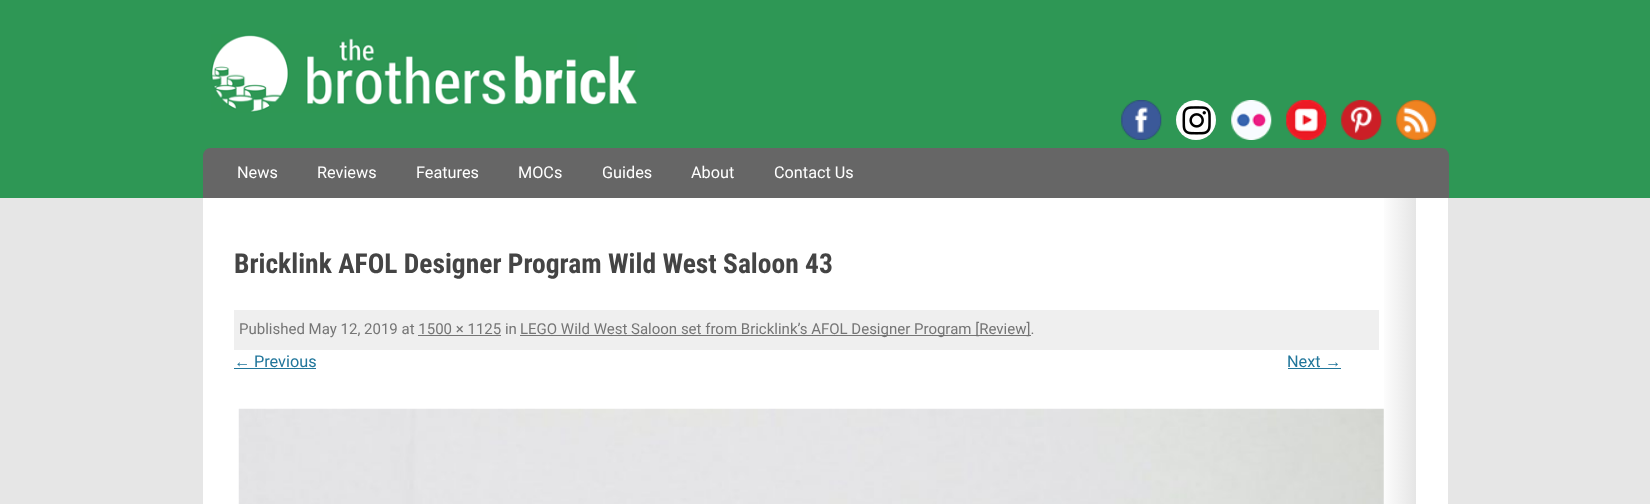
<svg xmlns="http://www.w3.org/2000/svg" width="1650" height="504">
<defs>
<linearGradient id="g1" gradientUnits="userSpaceOnUse" x1="234" y1="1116" x2="1416" y2="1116"><stop offset="0.97" stop-color="#fff"/><stop offset="1" stop-color="#e5e5e5"/></linearGradient>
</defs>
<rect width="100%" height="100%" fill="#e6e6e6"/>
<rect width="1650" height="198" fill="#2e9755"/>
<image x="211" y="34" width="426" height="79" href="media/1.png"/>
<image x="1121" y="100" width="41" height="40" href="media/2.png"/>
<circle cx="1196" cy="120" r="20" fill="#fff"/>
<image x="1182" y="106" width="29" height="29" href="media/3.png"/>
<image x="1231" y="100" width="41" height="40" href="media/4.png"/>
<image x="1286" y="100" width="41" height="40" href="media/5.png"/>
<image x="1341" y="100" width="41" height="40" href="media/6.png"/>
<image x="1396" y="100" width="41" height="40" href="media/7.png"/>
<path d="M211 148h1230c4.5 0 8 3.5 8 8v42h-1246v-42c0-4.5 3.5-8 8-8z" fill="#666"/>
<text x="237" y="178" style="font-family:Roboto;font-size:16.25px;fill:#fff">News</text>
<text x="317" y="178" style="font-family:Roboto;font-size:16.25px;fill:#fff">Reviews</text>
<text x="416" y="178" style="font-family:Roboto;font-size:16.25px;fill:#fff">Features</text>
<text x="518" y="178" style="font-family:Roboto;font-size:16.25px;fill:#fff">MOCs</text>
<text x="602" y="178" style="font-family:Roboto;font-size:16.25px;fill:#fff">Guides</text>
<text x="691" y="178" style="font-family:Roboto;font-size:16.25px;fill:#fff">About</text>
<text x="774" y="178" style="font-family:Roboto;font-size:16.25px;fill:#fff">Contact Us</text>
<rect x="203" y="198" width="1245" height="306" fill="#fff"/>
<rect x="1384" y="198" width="32" height="306" fill="url(#g1)"/>
<text x="234" y="273" style="font-family:Roboto Condensed;font-size:27.5px;font-weight:bold;fill:#444">Bricklink AFOL Designer Program Wild West Saloon 43</text>
<rect x="234" y="310" width="1145" height="40" fill="#efefef"/>
<text x="239" y="334" style="font-family:Roboto;font-size:15px;fill:#757575">Published May 12, 2019 at 1500 × 1125 in</text>
<rect x="520" y="335" width="511" height="1" fill="#757575"/>
<text x="520" y="334" style="font-family:Roboto;font-size:15px;fill:#757575">LEGO Wild West Saloon set from Bricklink’s AFOL Designer Program [Review].</text>
<rect x="418" y="335" width="83" height="1" fill="#757575"/>
<text x="234" y="367" style="font-family:Liberation Sans;font-size:16.25px;fill:#21769b">←</text>
<rect x="234" y="368" width="82" height="1" fill="#21769b"/>
<text x="254" y="367" style="font-family:Roboto;font-size:16.25px;fill:#21769b">Previous</text>
<text x="1287" y="367" style="font-family:Roboto;font-size:16.25px;fill:#21769b">Next</text>
<text x="1325" y="367" style="font-family:Liberation Sans;font-size:16.25px;fill:#21769b">→</text>
<rect x="1288" y="368" width="53" height="1" fill="#21769b"/>
<image x="238" y="408" width="1146" height="96" href="media/8.png"/>
</svg>
